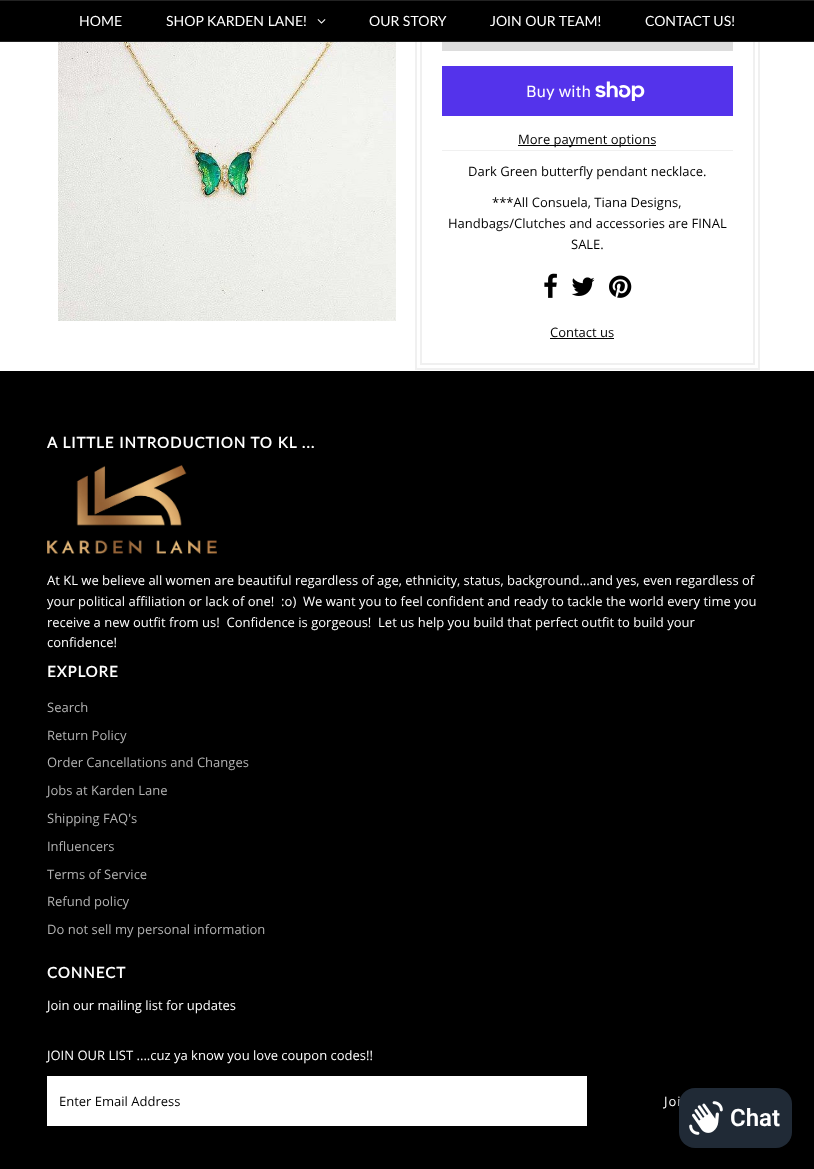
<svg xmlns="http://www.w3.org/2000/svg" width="814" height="1169">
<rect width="100%" height="100%" fill="#fff"/>
<rect x="416" y="-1" width="343" height="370" fill="none" stroke="#f0f0f0" stroke-width="2"/>
<rect x="421" y="-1" width="333" height="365" fill="none" stroke="#f0f0f0" stroke-width="2"/>
<rect y="1" width="814" height="40" fill="#000"/>
<rect width="814" height="1" fill="#222"/>
<rect y="41" width="814" height="1" fill="#222"/>
<text x="79" y="26" style="font-family:Lato;font-size:14px;fill:#fff">HOME</text>
<text x="166" y="26" style="font-family:Lato;font-size:14px;fill:#fff">SHOP KARDEN LANE!</text>
<image x="317" y="19" width="9" height="5" href="media/1.png"/>
<text x="369" y="26" style="font-family:Lato;font-size:14px;fill:#fff">OUR STORY</text>
<text x="490" y="26" style="font-family:Lato;font-size:14px;fill:#fff">JOIN OUR TEAM!</text>
<text x="645" y="26" style="font-family:Lato;font-size:14px;fill:#fff">CONTACT US!</text>
<image x="58" y="42" width="338" height="279" href="media/2.png"/>
<rect x="442" y="150" width="291" height="1" fill="#f0f0f0"/>
<rect x="442" y="42" width="291" height="9" fill="#ddd"/>
<rect x="442" y="66" width="291" height="50" fill="#5433eb"/>
<text x="526" y="97" style="font-family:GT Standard;font-size:16px;fill:#fff">Buy with</text>
<image x="595" y="81" width="50" height="20" href="media/3.png"/>
<rect x="518" y="145" width="138" height="1" fill="#000"/>
<text x="518" y="144" style="font-family:Open Sans;font-size:13px;fill:#000">More payment options</text>
<text x="468" y="176" style="font-family:Open Sans;font-size:13px;fill:#000">Dark Green butterfly pendant necklace.</text>
<text x="492" y="207" style="font-family:Open Sans;font-size:13px;fill:#000">***All Consuela, Tiana Designs,</text>
<text x="448" y="228" style="font-family:Open Sans;font-size:13px;fill:#000">Handbags/Clutches and accessories are FINAL</text>
<text x="571" y="249" style="font-family:Open Sans;font-size:13px;fill:#000">SALE.</text>
<image x="544" y="273" width="13" height="25" href="media/4.png"/>
<image x="571" y="277" width="24" height="19" href="media/5.png"/>
<image x="609" y="275" width="23" height="23" href="media/6.png"/>
<text x="550" y="337" style="font-family:Open Sans;font-size:13px;fill:#000">Contact us</text>
<rect x="550" y="338" width="64" height="1" fill="#000"/>
<rect y="371" width="814" height="798" fill="#000"/>
<text x="47" y="448" style="font-family:Lato;font-size:15px;font-weight:bold;letter-spacing:1px;fill:#fff">A LITTLE INTRODUCTION TO KL ...</text>
<image x="47" y="465" width="170" height="89" href="media/7.png"/>
<text x="47" y="585" style="font-family:Open Sans;font-size:13px;fill:#fff">At KL we believe all women are beautiful regardless of age, ethnicity, status, background...and yes, even regardless of</text>
<text x="47" y="606" style="font-family:Open Sans;font-size:13px;fill:#fff" xml:space="preserve">your political affiliation or lack of one!  :o)  We want you to feel confident and ready to tackle the world every time you</text>
<text x="47" y="627" style="font-family:Open Sans;font-size:13px;fill:#fff" xml:space="preserve">receive a new outfit from us!  Confidence is gorgeous!  Let us help you build that perfect outfit to build your</text>
<text x="47" y="647" style="font-family:Open Sans;font-size:13px;fill:#fff">confidence!</text>
<text x="47" y="677" style="font-family:Lato;font-size:15px;font-weight:bold;letter-spacing:1px;fill:#fff">EXPLORE</text>
<text x="47" y="712" style="font-family:Open Sans;font-size:13px;fill:#b3b3b3">Search</text>
<text x="47" y="740" style="font-family:Open Sans;font-size:13px;fill:#b3b3b3">Return Policy</text>
<text x="47" y="767" style="font-family:Open Sans;font-size:13px;fill:#b3b3b3">Order Cancellations and Changes</text>
<text x="47" y="795" style="font-family:Open Sans;font-size:13px;fill:#b3b3b3">Jobs at Karden Lane</text>
<text x="47" y="823" style="font-family:Open Sans;font-size:13px;fill:#b3b3b3">Shipping FAQ's</text>
<text x="47" y="851" style="font-family:Open Sans;font-size:13px;fill:#b3b3b3">Influencers</text>
<text x="47" y="879" style="font-family:Open Sans;font-size:13px;fill:#b3b3b3">Terms of Service</text>
<text x="47" y="906" style="font-family:Open Sans;font-size:13px;fill:#b3b3b3">Refund policy</text>
<text x="47" y="934" style="font-family:Open Sans;font-size:13px;fill:#b3b3b3">Do not sell my personal information</text>
<text x="47" y="978" style="font-family:Lato;font-size:15px;font-weight:bold;letter-spacing:1px;fill:#fff">CONNECT</text>
<text x="47" y="1010" style="font-family:Open Sans;font-size:13px;fill:#fff">Join our mailing list for updates</text>
<text x="47" y="1060" style="font-family:Open Sans;font-size:13px;fill:#fff">JOIN OUR LIST ....cuz ya know you love coupon codes!!</text>
<rect x="47" y="1076" width="540" height="50" fill="#fff"/>
<text x="59" y="1106" style="font-family:Open Sans;font-size:13px;fill:#000">Enter Email Address</text>
<text x="664" y="1106" style="font-family:Open Sans;font-size:13px;letter-spacing:1px;fill:#fff">Joi</text>
<rect x="679" y="1088" width="113" height="60" rx="16" fill="#00000026" filter="blur(2.5px)"/>
<rect x="679" y="1088" width="113" height="60" rx="16" fill="#202a36"/>
<image x="689" y="1101" width="34" height="34" href="media/8.png"/>
<text x="730" y="1126" style="font-family:Roboto;font-size:24px;font-weight:600;fill:#fff">Chat</text>
</svg>
